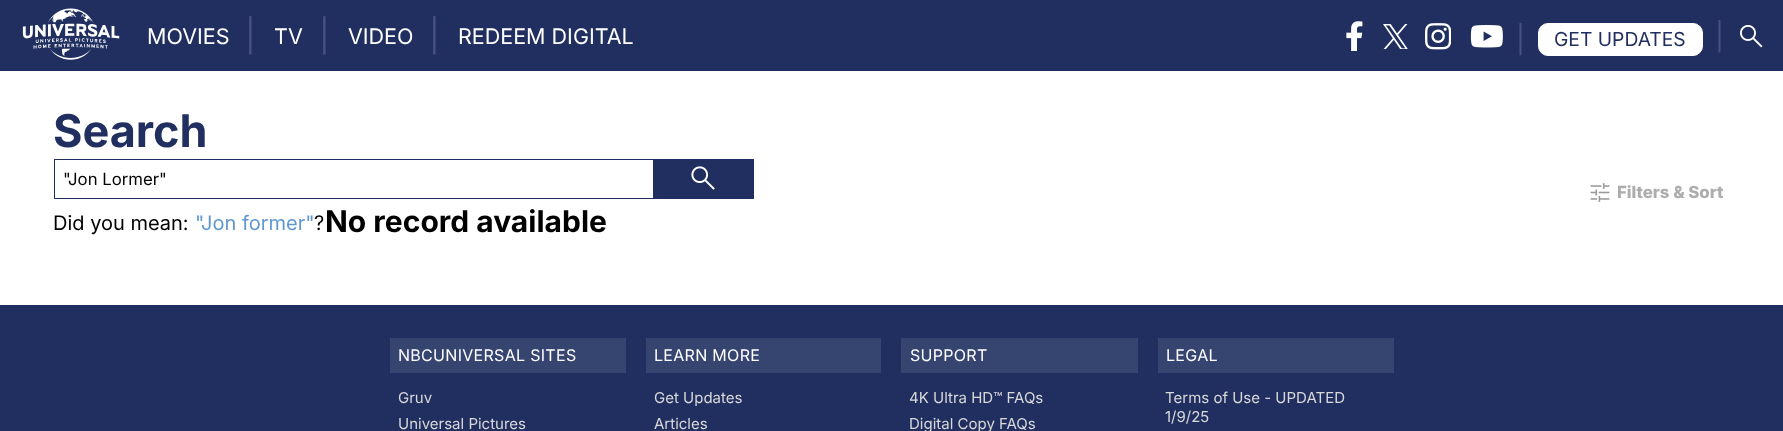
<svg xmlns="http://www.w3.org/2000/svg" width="1783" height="431">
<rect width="100%" height="100%" fill="#fff"/>
<rect width="1783" height="71" fill="#202f60"/>
<image x="22" y="8" width="98" height="52" href="media/1.png"/>
<text x="147" y="44" style="font-family:Inter;font-size:21.5px;fill:#fff">MOVIES</text>
<text x="245" y="47" style="font-family:Inter;font-size:32px;fill:#475084">|</text>
<text x="274" y="44" style="font-family:Inter;font-size:21.5px;fill:#fff">TV</text>
<text x="319" y="47" style="font-family:Inter;font-size:32px;fill:#475084">|</text>
<text x="348" y="44" style="font-family:Inter;font-size:21.5px;fill:#fff">VIDEO</text>
<text x="429" y="47" style="font-family:Inter;font-size:32px;fill:#475084">|</text>
<text x="458" y="44" style="font-family:Inter;font-size:21.5px;fill:#fff">REDEEM DIGITAL</text>
<image x="1346" y="21" width="17" height="30" href="media/2.png"/>
<image x="1383" y="24" width="25" height="25" href="media/3.png"/>
<image x="1425" y="23" width="26" height="27" href="media/4.png"/>
<image x="1470" y="25" width="33" height="23" href="media/5.png"/>
<text x="1516" y="49" style="font-family:Inter;font-size:27px;fill:#475084">|</text>
<rect x="1538.5" y="23.5" width="164" height="32" rx="9.5" fill="#fff" stroke="#fff"/>
<text x="1554" y="46" style="font-family:Inter;font-size:19.25px;fill:#202f60">GET UPDATES</text>
<text x="1715" y="46" style="font-family:Inter;font-size:27px;fill:#475084">|</text>
<image x="1740" y="25" width="23" height="23" href="media/6.png"/>
<text x="53" y="147" style="font-family:Inter;font-size:45px;font-weight:bold;fill:#202f60">Search</text>
<rect x="54.5" y="159.5" width="599" height="39" fill="none" stroke="#202f60"/>
<text x="63" y="185" style="font-family:Inter;font-size:16.75px;fill:#000">"Jon Lormer"</text>
<rect x="654" y="159" width="100" height="40" fill="#202f60"/>
<image x="691" y="166" width="24" height="24" href="media/7.png"/>
<image x="1590" y="183" width="20" height="19" href="media/8.png"/>
<text x="1617" y="198" style="font-family:Inter;font-size:16.75px;font-weight:800;fill:#adadad">Filters &amp; Sort</text>
<text x="53" y="230" style="font-family:Inter;font-size:20px;fill:#000">Did you mean:</text>
<text x="195" y="230" style="font-family:Inter;font-size:20px;fill:#6198d0">"Jon former"</text>
<text x="314" y="230" style="font-family:Inter;font-size:20px;fill:#000">?</text>
<text x="325" y="232" style="font-family:Inter;font-size:30px;font-weight:bold;fill:#000">No record available</text>
<rect y="305" width="1783" height="126" fill="#202f60"/>
<rect x="390" y="338" width="236" height="35" fill="#364470"/>
<text x="398" y="361" style="font-family:Inter;font-size:16px;letter-spacing:0.3px;fill:#fff">NBCUNIVERSAL SITES</text>
<text x="398" y="403" style="font-family:Inter;font-size:15px;fill:#d9d9d9">Gruv</text>
<text x="398" y="429" style="font-family:Inter;font-size:15px;fill:#d9d9d9">Universal Pictures</text>
<rect x="646" y="338" width="235" height="35" fill="#364470"/>
<text x="654" y="361" style="font-family:Inter;font-size:16px;letter-spacing:0.3px;fill:#fff">LEARN MORE</text>
<text x="654" y="403" style="font-family:Inter;font-size:15px;fill:#d9d9d9">Get Updates</text>
<text x="654" y="429" style="font-family:Inter;font-size:15px;fill:#d9d9d9">Articles</text>
<rect x="901" y="338" width="237" height="35" fill="#364470"/>
<text x="910" y="361" style="font-family:Inter;font-size:16px;letter-spacing:0.3px;fill:#fff">SUPPORT</text>
<text x="909" y="403" style="font-family:Inter;font-size:15px;fill:#d9d9d9">4K Ultra HD™ FAQs</text>
<text x="909" y="429" style="font-family:Inter;font-size:15px;fill:#d9d9d9">Digital Copy FAQs</text>
<rect x="1158" y="338" width="236" height="35" fill="#364470"/>
<text x="1166" y="361" style="font-family:Inter;font-size:16px;letter-spacing:0.3px;fill:#fff">LEGAL</text>
<text x="1165" y="403" style="font-family:Inter;font-size:15px;fill:#d9d9d9">Terms of Use - UPDATED</text>
<text x="1165" y="422" style="font-family:Inter;font-size:15px;fill:#d9d9d9">1/9/25</text>
</svg>
